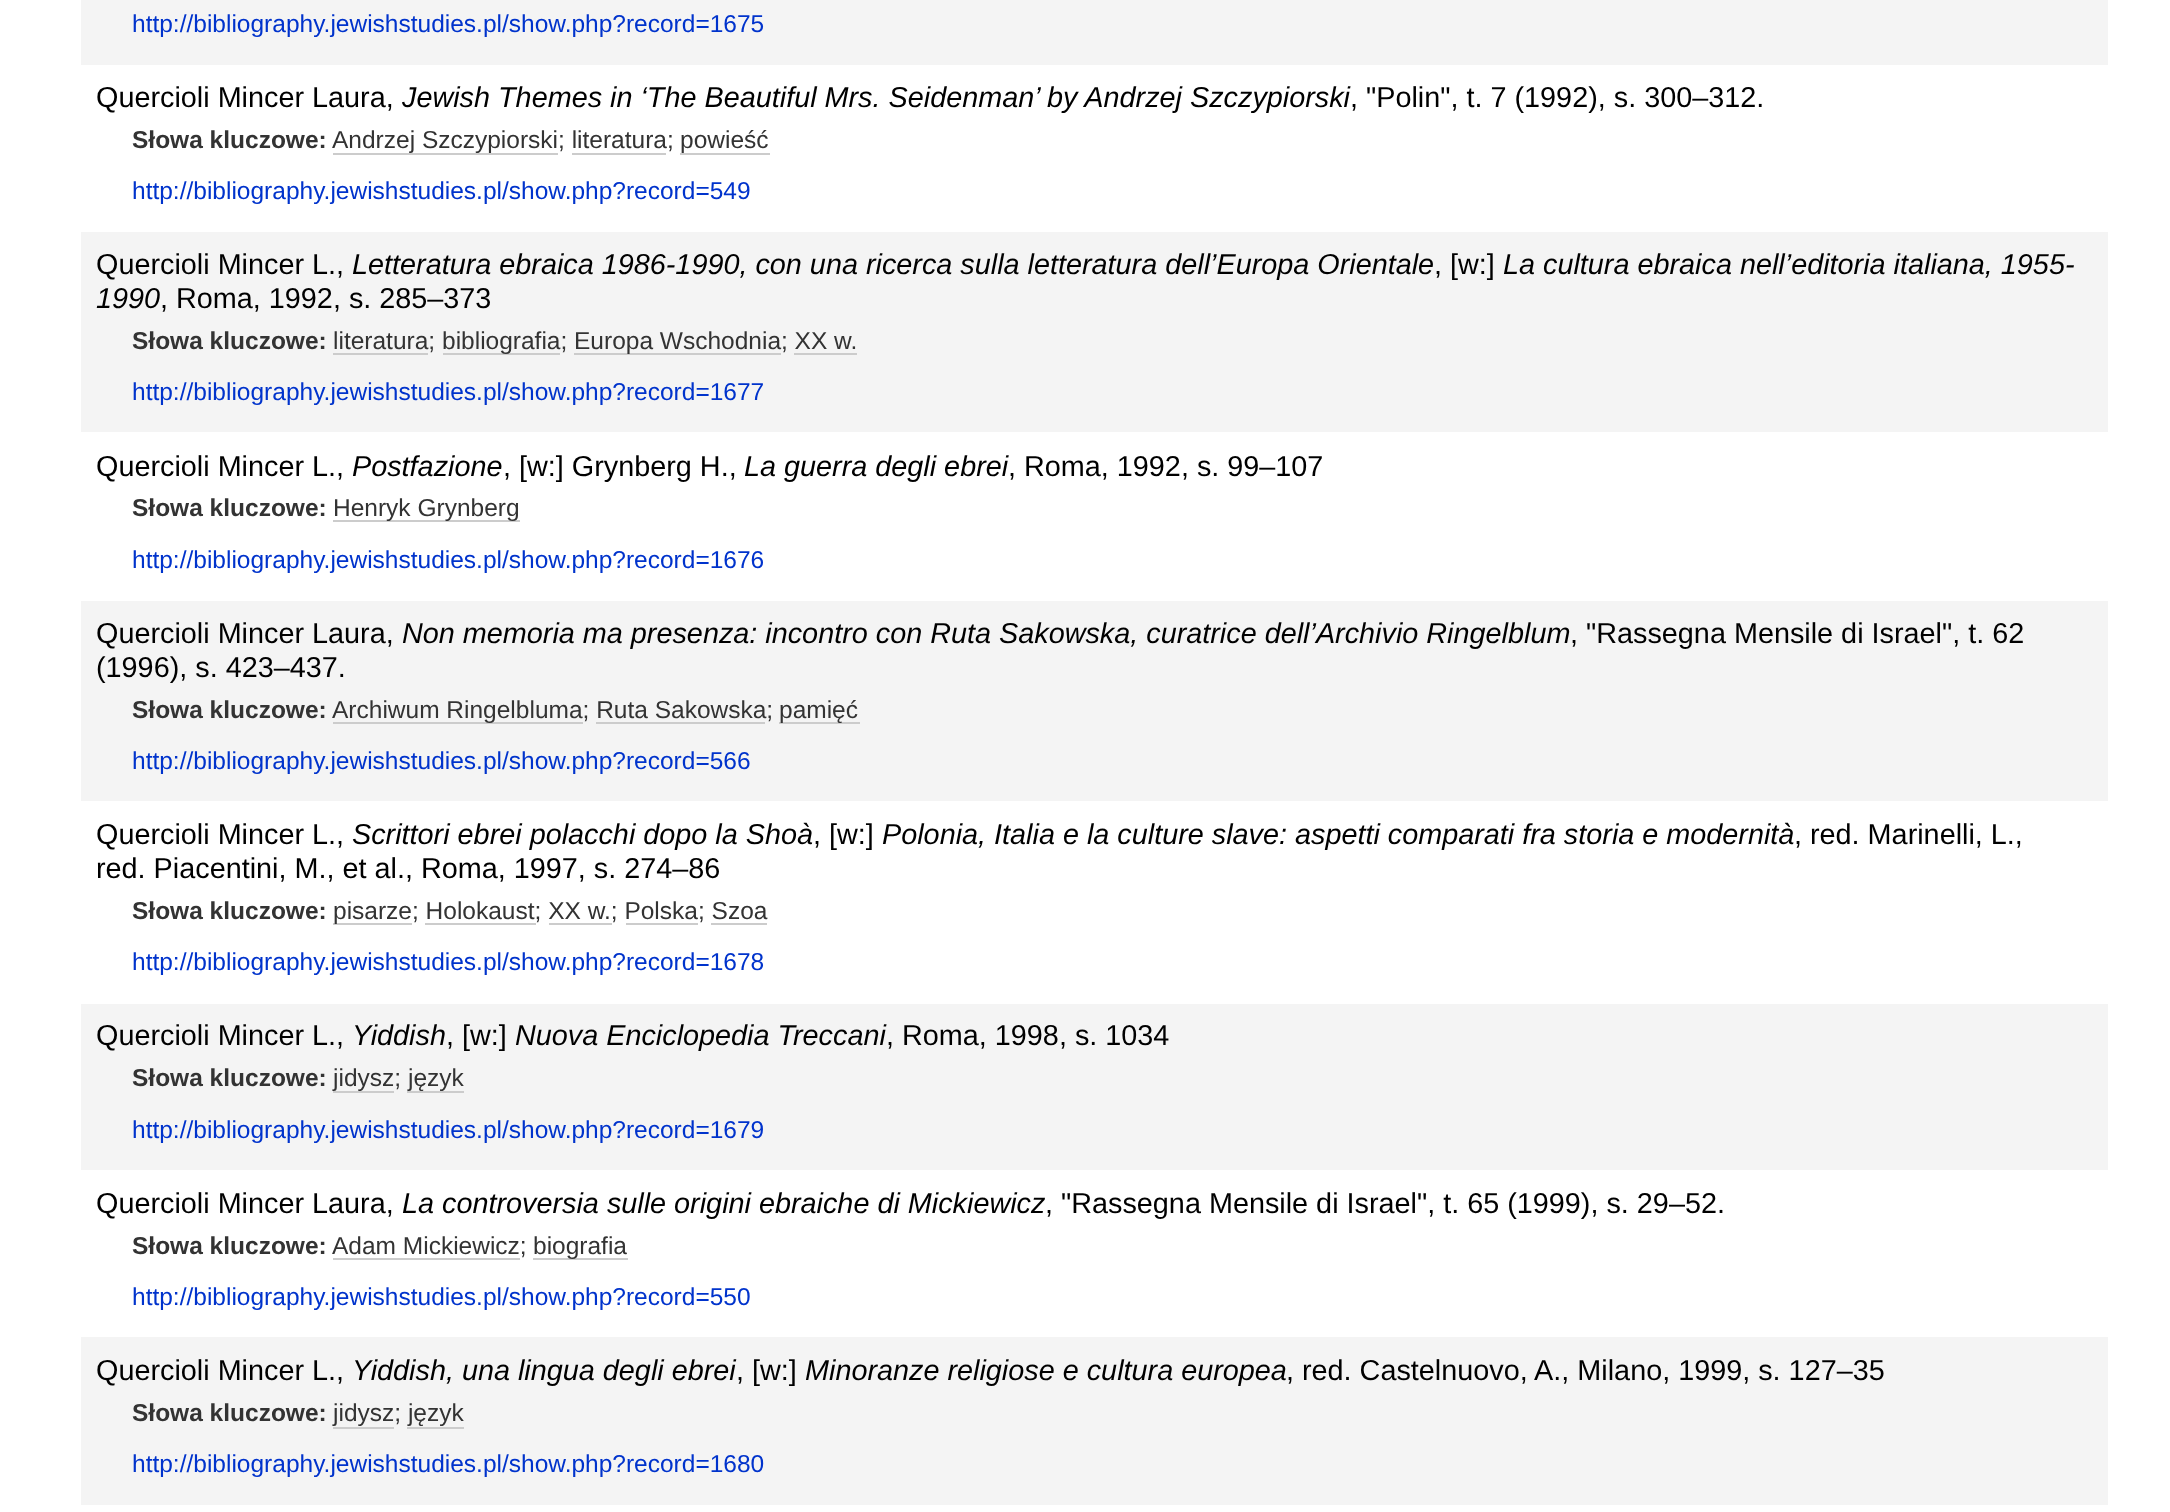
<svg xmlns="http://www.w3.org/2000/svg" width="2170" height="1512">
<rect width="100%" height="100%" fill="#fff"/>
<rect x="81" width="2027" height="65" fill="#f4f4f4"/>
<text x="132" y="32" style="font-family:Liberation Sans;font-size:24.5px;fill:#03c">http://bibliography.jewishstudies.pl/show.php?record=1675</text>
<text x="96" y="107" style="font-family:Liberation Sans;font-size:28.8px;fill:#000">Quercioli Mincer Laura,</text>
<text x="402" y="107" style="font-family:Liberation Sans;font-size:28.8px;font-style:italic;fill:#000">Jewish Themes in ‘The Beautiful Mrs. Seidenman’ by Andrzej Szczypiorski</text>
<text x="1350" y="107" style="font-family:Liberation Sans;font-size:28.8px;fill:#000">, "Polin", t. 7 (1992), s. 300–312.</text>
<text x="132" y="148" style="font-family:Liberation Sans;font-size:24.5px;font-weight:bold;fill:#333">Słowa kluczowe:</text>
<rect x="333" y="153" width="225" height="2" fill="#ccc"/>
<text x="332" y="148" style="font-family:Liberation Sans;font-size:24.5px;fill:#333">Andrzej Szczypiorski; literatura;</text>
<rect x="572" y="153" width="94" height="2" fill="#ccc"/>
<rect x="680" y="153" width="90" height="2" fill="#ccc"/>
<text x="680" y="148" style="font-family:Liberation Sans;font-size:24.5px;fill:#333">powieść</text>
<text x="132" y="199" style="font-family:Liberation Sans;font-size:24.5px;fill:#03c">http://bibliography.jewishstudies.pl/show.php?record=549</text>
<rect x="81" y="232" width="2027" height="200" fill="#f4f4f4"/>
<text x="96" y="274" style="font-family:Liberation Sans;font-size:28.8px;fill:#000">Quercioli Mincer L.,</text>
<text x="352" y="274" style="font-family:Liberation Sans;font-size:28.8px;font-style:italic;fill:#000">Letteratura ebraica 1986-1990, con una ricerca sulla letteratura dell’Europa Orientale</text>
<text x="1434" y="274" style="font-family:Liberation Sans;font-size:28.8px;fill:#000">, [w:]</text>
<text x="1503" y="274" style="font-family:Liberation Sans;font-size:28.8px;font-style:italic;fill:#000">La cultura ebraica nell’editoria italiana, 1955-</text>
<text x="96" y="308" style="font-family:Liberation Sans;font-size:28.8px;font-style:italic;fill:#000">1990</text>
<text x="160" y="308" style="font-family:Liberation Sans;font-size:28.8px;fill:#000">, Roma, 1992, s. 285–373</text>
<text x="132" y="349" style="font-family:Liberation Sans;font-size:24.5px;font-weight:bold;fill:#333">Słowa kluczowe:</text>
<text x="333" y="349" style="font-family:Liberation Sans;font-size:24.5px;fill:#333">literatura;</text>
<rect x="333" y="353" width="95" height="2" fill="#ccc"/>
<rect x="443" y="353" width="117" height="2" fill="#ccc"/>
<text x="442" y="349" style="font-family:Liberation Sans;font-size:24.5px;fill:#333">bibliografia;</text>
<rect x="574" y="353" width="207" height="2" fill="#ccc"/>
<text x="574" y="349" style="font-family:Liberation Sans;font-size:24.5px;fill:#333">Europa Wschodnia; XX w.</text>
<rect x="794" y="353" width="63" height="2" fill="#ccc"/>
<text x="132" y="400" style="font-family:Liberation Sans;font-size:24.5px;fill:#03c">http://bibliography.jewishstudies.pl/show.php?record=1677</text>
<text x="96" y="476" style="font-family:Liberation Sans;font-size:28.8px;fill:#000">Quercioli Mincer L.,</text>
<text x="352" y="476" style="font-family:Liberation Sans;font-size:28.8px;font-style:italic;fill:#000">Postfazione</text>
<text x="503" y="476" style="font-family:Liberation Sans;font-size:28.8px;fill:#000">, [w:] Grynberg H.,</text>
<text x="744" y="476" style="font-family:Liberation Sans;font-size:28.8px;font-style:italic;fill:#000">La guerra degli ebrei</text>
<text x="1008" y="476" style="font-family:Liberation Sans;font-size:28.8px;fill:#000">, Roma, 1992, s. 99–107</text>
<text x="132" y="516" style="font-family:Liberation Sans;font-size:24.5px;font-weight:bold;fill:#333">Słowa kluczowe:</text>
<rect x="333" y="520" width="187" height="2" fill="#ccc"/>
<text x="333" y="516" style="font-family:Liberation Sans;font-size:24.5px;fill:#333">Henryk Grynberg</text>
<text x="132" y="568" style="font-family:Liberation Sans;font-size:24.5px;fill:#03c">http://bibliography.jewishstudies.pl/show.php?record=1676</text>
<rect x="81" y="601" width="2027" height="200" fill="#f4f4f4"/>
<text x="96" y="643" style="font-family:Liberation Sans;font-size:28.8px;fill:#000">Quercioli Mincer Laura,</text>
<text x="402" y="643" style="font-family:Liberation Sans;font-size:28.8px;font-style:italic;fill:#000">Non memoria ma presenza: incontro con Ruta Sakowska, curatrice dell’Archivio Ringelblum</text>
<text x="1570" y="643" style="font-family:Liberation Sans;font-size:28.8px;fill:#000">, "Rassegna Mensile di Israel", t. 62</text>
<text x="96" y="677" style="font-family:Liberation Sans;font-size:28.8px;fill:#000">(1996), s. 423–437.</text>
<text x="132" y="718" style="font-family:Liberation Sans;font-size:24.5px;font-weight:bold;fill:#333">Słowa kluczowe:</text>
<rect x="333" y="722" width="250" height="2" fill="#ccc"/>
<text x="332" y="718" style="font-family:Liberation Sans;font-size:24.5px;fill:#333">Archiwum Ringelbluma; Ruta Sakowska;</text>
<rect x="596" y="722" width="169" height="2" fill="#ccc"/>
<rect x="779" y="722" width="81" height="2" fill="#ccc"/>
<text x="779" y="718" style="font-family:Liberation Sans;font-size:24.5px;fill:#333">pamięć</text>
<text x="132" y="769" style="font-family:Liberation Sans;font-size:24.5px;fill:#03c">http://bibliography.jewishstudies.pl/show.php?record=566</text>
<text x="96" y="844" style="font-family:Liberation Sans;font-size:28.8px;fill:#000">Quercioli Mincer L.,</text>
<text x="352" y="844" style="font-family:Liberation Sans;font-size:28.8px;font-style:italic;fill:#000">Scrittori ebrei polacchi dopo la Shoà</text>
<text x="813" y="844" style="font-family:Liberation Sans;font-size:28.8px;fill:#000">, [w:]</text>
<text x="882" y="844" style="font-family:Liberation Sans;font-size:28.8px;font-style:italic;fill:#000">Polonia, Italia e la culture slave: aspetti comparati fra storia e modernità</text>
<text x="1794" y="844" style="font-family:Liberation Sans;font-size:28.8px;fill:#000">, red. Marinelli, L.,</text>
<text x="96" y="878" style="font-family:Liberation Sans;font-size:28.8px;fill:#000">red. Piacentini, M., et al., Roma, 1997, s. 274–86</text>
<text x="132" y="919" style="font-family:Liberation Sans;font-size:24.5px;font-weight:bold;fill:#333">Słowa kluczowe:</text>
<rect x="333" y="923" width="79" height="2" fill="#ccc"/>
<text x="333" y="919" style="font-family:Liberation Sans;font-size:24.5px;fill:#333">pisarze; Holokaust; XX w.; Polska; Szoa</text>
<rect x="425" y="923" width="111" height="2" fill="#ccc"/>
<rect x="549" y="923" width="63" height="2" fill="#ccc"/>
<rect x="626" y="923" width="72" height="2" fill="#ccc"/>
<rect x="711" y="923" width="56" height="2" fill="#ccc"/>
<text x="132" y="970" style="font-family:Liberation Sans;font-size:24.5px;fill:#03c">http://bibliography.jewishstudies.pl/show.php?record=1678</text>
<rect x="81" y="1004" width="2027" height="166" fill="#f4f4f4"/>
<text x="96" y="1045" style="font-family:Liberation Sans;font-size:28.8px;fill:#000">Quercioli Mincer L.,</text>
<text x="352" y="1045" style="font-family:Liberation Sans;font-size:28.8px;font-style:italic;fill:#000">Yiddish</text>
<text x="446" y="1045" style="font-family:Liberation Sans;font-size:28.8px;fill:#000">, [w:]</text>
<text x="515" y="1045" style="font-family:Liberation Sans;font-size:28.8px;font-style:italic;fill:#000">Nuova Enciclopedia Treccani</text>
<text x="886" y="1045" style="font-family:Liberation Sans;font-size:28.8px;fill:#000">, Roma, 1998, s. 1034</text>
<text x="132" y="1086" style="font-family:Liberation Sans;font-size:24.5px;font-weight:bold;fill:#333">Słowa kluczowe:</text>
<rect x="333" y="1091" width="61" height="2" fill="#ccc"/>
<text x="333" y="1086" style="font-family:Liberation Sans;font-size:24.5px;fill:#333">jidysz;</text>
<rect x="407" y="1091" width="57" height="2" fill="#ccc"/>
<text x="408" y="1086" style="font-family:Liberation Sans;font-size:24.5px;fill:#333">język</text>
<text x="132" y="1138" style="font-family:Liberation Sans;font-size:24.5px;fill:#03c">http://bibliography.jewishstudies.pl/show.php?record=1679</text>
<text x="96" y="1213" style="font-family:Liberation Sans;font-size:28.8px;fill:#000">Quercioli Mincer Laura,</text>
<text x="402" y="1213" style="font-family:Liberation Sans;font-size:28.8px;font-style:italic;fill:#000">La controversia sulle origini ebraiche di Mickiewicz</text>
<text x="1045" y="1213" style="font-family:Liberation Sans;font-size:28.8px;fill:#000">, "Rassegna Mensile di Israel", t. 65 (1999), s. 29–52.</text>
<text x="132" y="1254" style="font-family:Liberation Sans;font-size:24.5px;font-weight:bold;fill:#333">Słowa kluczowe:</text>
<text x="332" y="1254" style="font-family:Liberation Sans;font-size:24.5px;fill:#333">Adam Mickiewicz;</text>
<rect x="333" y="1258" width="187" height="2" fill="#ccc"/>
<rect x="533" y="1258" width="95" height="2" fill="#ccc"/>
<text x="533" y="1254" style="font-family:Liberation Sans;font-size:24.5px;fill:#333">biografia</text>
<text x="132" y="1305" style="font-family:Liberation Sans;font-size:24.5px;fill:#03c">http://bibliography.jewishstudies.pl/show.php?record=550</text>
<rect x="81" y="1337" width="2027" height="168" fill="#f4f4f4"/>
<text x="96" y="1380" style="font-family:Liberation Sans;font-size:28.8px;fill:#000">Quercioli Mincer L.,</text>
<text x="352" y="1380" style="font-family:Liberation Sans;font-size:28.8px;font-style:italic;fill:#000">Yiddish, una lingua degli ebrei</text>
<text x="736" y="1380" style="font-family:Liberation Sans;font-size:28.8px;fill:#000">, [w:]</text>
<text x="805" y="1380" style="font-family:Liberation Sans;font-size:28.8px;font-style:italic;fill:#000">Minoranze religiose e cultura europea</text>
<text x="1286" y="1380" style="font-family:Liberation Sans;font-size:28.8px;fill:#000">, red. Castelnuovo, A., Milano, 1999, s. 127–35</text>
<text x="132" y="1421" style="font-family:Liberation Sans;font-size:24.5px;font-weight:bold;fill:#333">Słowa kluczowe:</text>
<text x="333" y="1421" style="font-family:Liberation Sans;font-size:24.5px;fill:#333">jidysz; język</text>
<rect x="333" y="1427" width="61" height="2" fill="#ccc"/>
<rect x="407" y="1427" width="57" height="2" fill="#ccc"/>
<text x="132" y="1472" style="font-family:Liberation Sans;font-size:24.5px;fill:#03c">http://bibliography.jewishstudies.pl/show.php?record=1680</text>
</svg>
